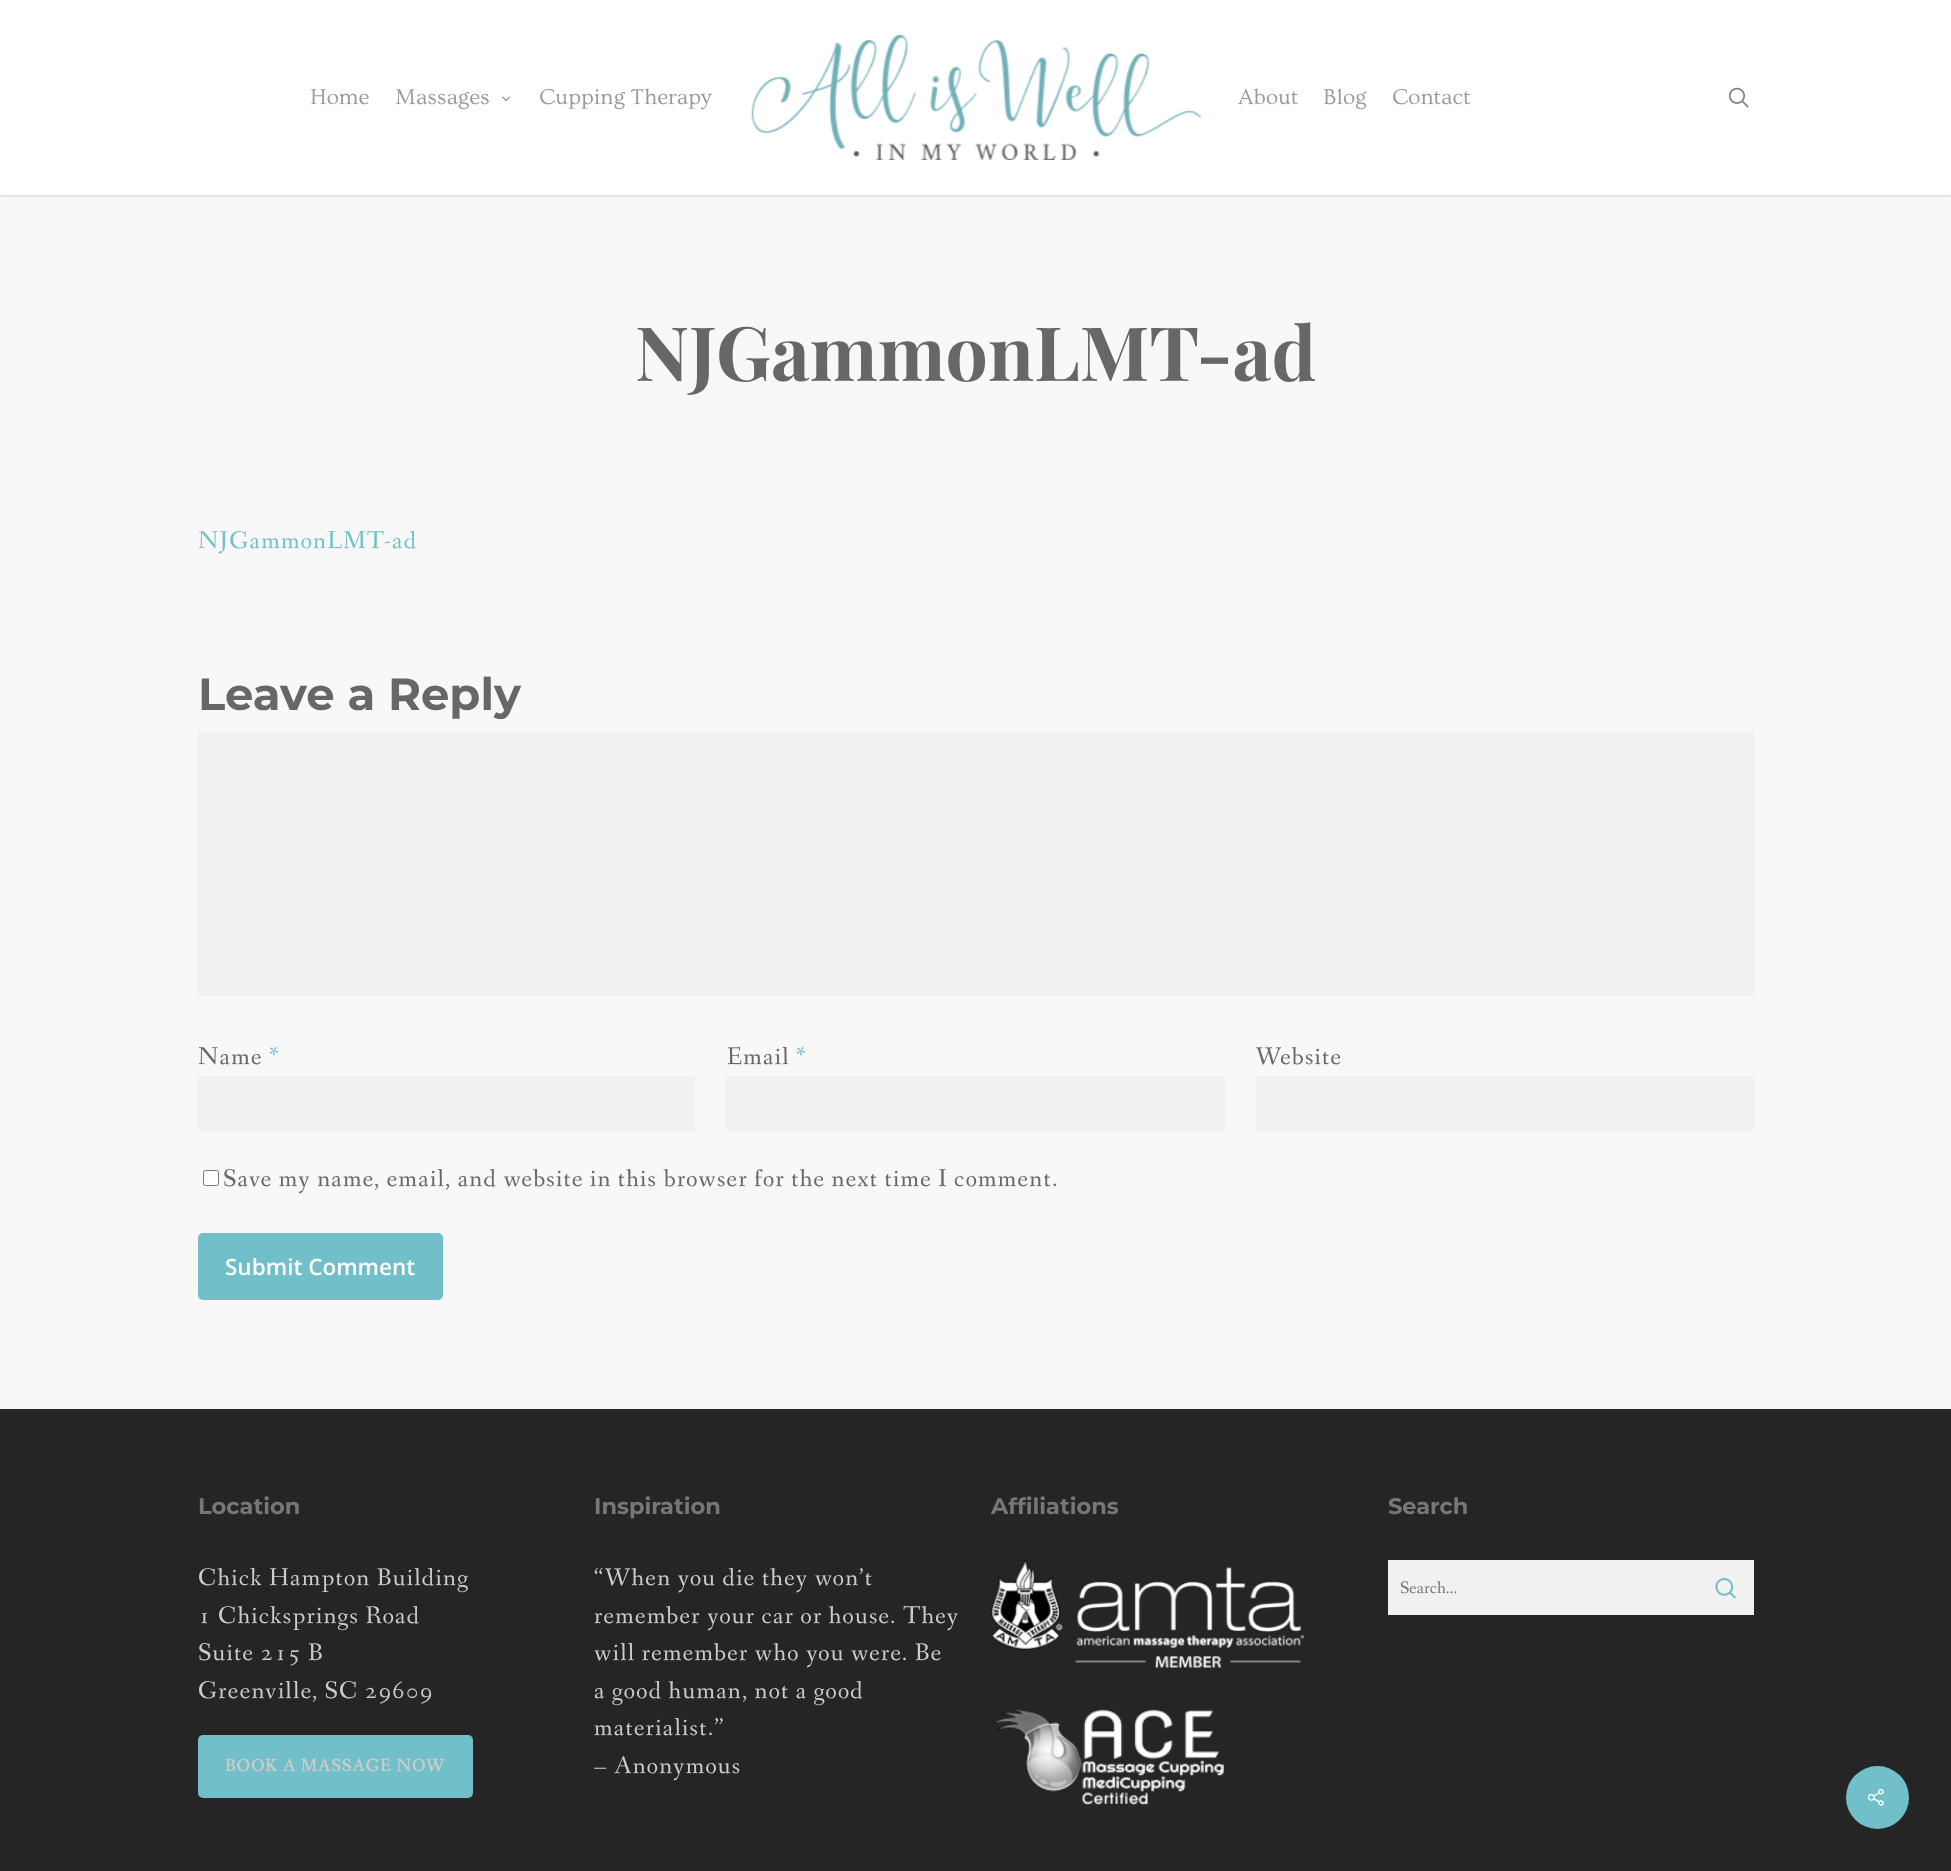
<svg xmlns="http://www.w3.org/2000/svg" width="1951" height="1871">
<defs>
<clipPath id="clip1"><rect x="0" y="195" width="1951" height="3"/></clipPath>
</defs>
<rect width="100%" height="100%" fill="#f8f8f8"/>
<rect width="1951" height="195" fill="#fff"/>
<g clip-path="url(#clip1)">
<rect width="1951" height="195" fill="#00000038" filter="blur(2px)"/>
</g>
<image x="751" y="35" width="450" height="125" href="media/1.png"/>
<text x="310" y="104" style="font-family:Ovo;font-size:22.5px;fill:#999">Home</text>
<text x="395" y="104" style="font-family:Ovo;font-size:22.5px;fill:#999">Massages</text>
<image x="502" y="96" width="8" height="6" href="media/2.png"/>
<text x="539" y="104" style="font-family:Ovo;font-size:22.5px;fill:#999">Cupping Therapy</text>
<text x="1238" y="104" style="font-family:Ovo;font-size:22.5px;fill:#999">About</text>
<text x="1323" y="104" style="font-family:Ovo;font-size:22.5px;fill:#999">Blog</text>
<text x="1392" y="104" style="font-family:Ovo;font-size:22.5px;fill:#999">Contact</text>
<image x="1728" y="87" width="21" height="21" href="media/3.png"/>
<text x="635" y="381" style="font-family:Playfair Display;font-size:75px;font-weight:bold;fill:#676767">NJGammonLMT-ad</text>
<text x="198" y="548" style="font-family:Fanwood Text;font-size:25px;letter-spacing:1.25px;fill:#71bfc8">NJGammonLMT-ad</text>
<text x="198" y="710" style="font-family:Montserrat;font-size:45px;font-weight:100;fill:#676767">Leave a Reply</text>
<rect x="198" y="731" width="1556" height="265" fill="#f1f1f1"/>
<text x="198" y="1064" style="font-family:Fanwood Text;font-size:25px;letter-spacing:1.25px;fill:#676767">Name</text>
<text x="269" y="1064" style="font-family:Fanwood Text;font-size:25px;letter-spacing:1.25px;fill:#71bfc8">*</text>
<rect x="198" y="1076" width="497" height="55" fill="#f1f1f1"/>
<text x="727" y="1064" style="font-family:Fanwood Text;font-size:25px;letter-spacing:1.25px;fill:#676767">Email</text>
<text x="796" y="1064" style="font-family:Fanwood Text;font-size:25px;letter-spacing:1.25px;fill:#71bfc8">*</text>
<rect x="726" y="1076" width="499" height="55" fill="#f1f1f1"/>
<text x="1256" y="1064" style="font-family:Fanwood Text;font-size:25px;letter-spacing:1.25px;fill:#676767">Website</text>
<rect x="1256" y="1076" width="498" height="55" fill="#f1f1f1"/>
<rect x="203.5" y="1170.5" width="15" height="15" rx="2" fill="#fff" stroke="#767676"/>
<text x="223" y="1186" style="font-family:Fanwood Text;font-size:25px;letter-spacing:1.25px;fill:#676767">Save my name, email, and website in this browser for the next time I comment.</text>
<rect x="198" y="1233" width="245" height="67" rx="5" fill="#71bfc8"/>
<text x="225" y="1275" style="font-family:Open Sans;font-size:22.5px;font-weight:600;fill:#fff">Submit Comment</text>
<rect y="1409" width="1951" height="462" fill="#252525"/>
<text x="198" y="1514" style="font-family:Montserrat;font-size:22.5px;font-weight:100;fill:#777">Location</text>
<text x="198" y="1585" style="font-family:Fanwood Text;font-size:25px;letter-spacing:1.25px;fill:#ccc">Chick Hampton Building</text>
<text x="198" y="1623" style="font-family:Fanwood Text;font-size:25px;letter-spacing:1.25px;fill:#ccc">1 Chicksprings Road</text>
<text x="198" y="1660" style="font-family:Fanwood Text;font-size:25px;letter-spacing:1.25px;fill:#ccc">Suite 215 B</text>
<text x="198" y="1698" style="font-family:Fanwood Text;font-size:25px;letter-spacing:1.25px;fill:#ccc">Greenville, SC 29609</text>
<rect x="198" y="1735" width="275" height="63" rx="5" fill="#71bfc8"/>
<text x="225" y="1771" style="font-family:Fanwood Text;font-size:17.5px;font-weight:bold;letter-spacing:1.25px;fill:#ccc">BOOK A MASSAGE NOW</text>
<text x="594" y="1514" style="font-family:Montserrat;font-size:22.5px;font-weight:100;fill:#777">Inspiration</text>
<text x="594" y="1585" style="font-family:Fanwood Text;font-size:25px;letter-spacing:1.25px;fill:#ccc">“When you die they won’t</text>
<text x="594" y="1623" style="font-family:Fanwood Text;font-size:25px;letter-spacing:1.25px;fill:#ccc">remember your car or house. They</text>
<text x="594" y="1660" style="font-family:Fanwood Text;font-size:25px;letter-spacing:1.25px;fill:#ccc">will remember who you were. Be</text>
<text x="594" y="1698" style="font-family:Fanwood Text;font-size:25px;letter-spacing:1.25px;fill:#ccc">a good human, not a good</text>
<text x="594" y="1735" style="font-family:Fanwood Text;font-size:25px;letter-spacing:1.25px;fill:#ccc">materialist.”</text>
<text x="594" y="1773" style="font-family:Fanwood Text;font-size:25px;letter-spacing:1.25px;fill:#ccc">– Anonymous</text>
<text x="991" y="1514" style="font-family:Montserrat;font-size:22.5px;font-weight:100;fill:#777">Affiliations</text>
<image x="991" y="1560" width="313" height="108" href="media/4.png"/>
<image x="993" y="1709" width="231" height="97" href="media/5.png"/>
<text x="1388" y="1514" style="font-family:Montserrat;font-size:22.5px;font-weight:100;fill:#777">Search</text>
<rect x="1388" y="1560" width="366" height="55" fill="#f1f1f1"/>
<text x="1400" y="1593" style="font-family:Fanwood Text;font-size:17.5px;fill:#777">Search...</text>
<image x="1715" y="1578" width="21" height="21" href="media/6.png"/>
<circle cx="1877.5" cy="1797.5" r="31.5" fill="#71bfc8"/>
<image x="1867" y="1789" width="17" height="17" href="media/7.png"/>
</svg>
